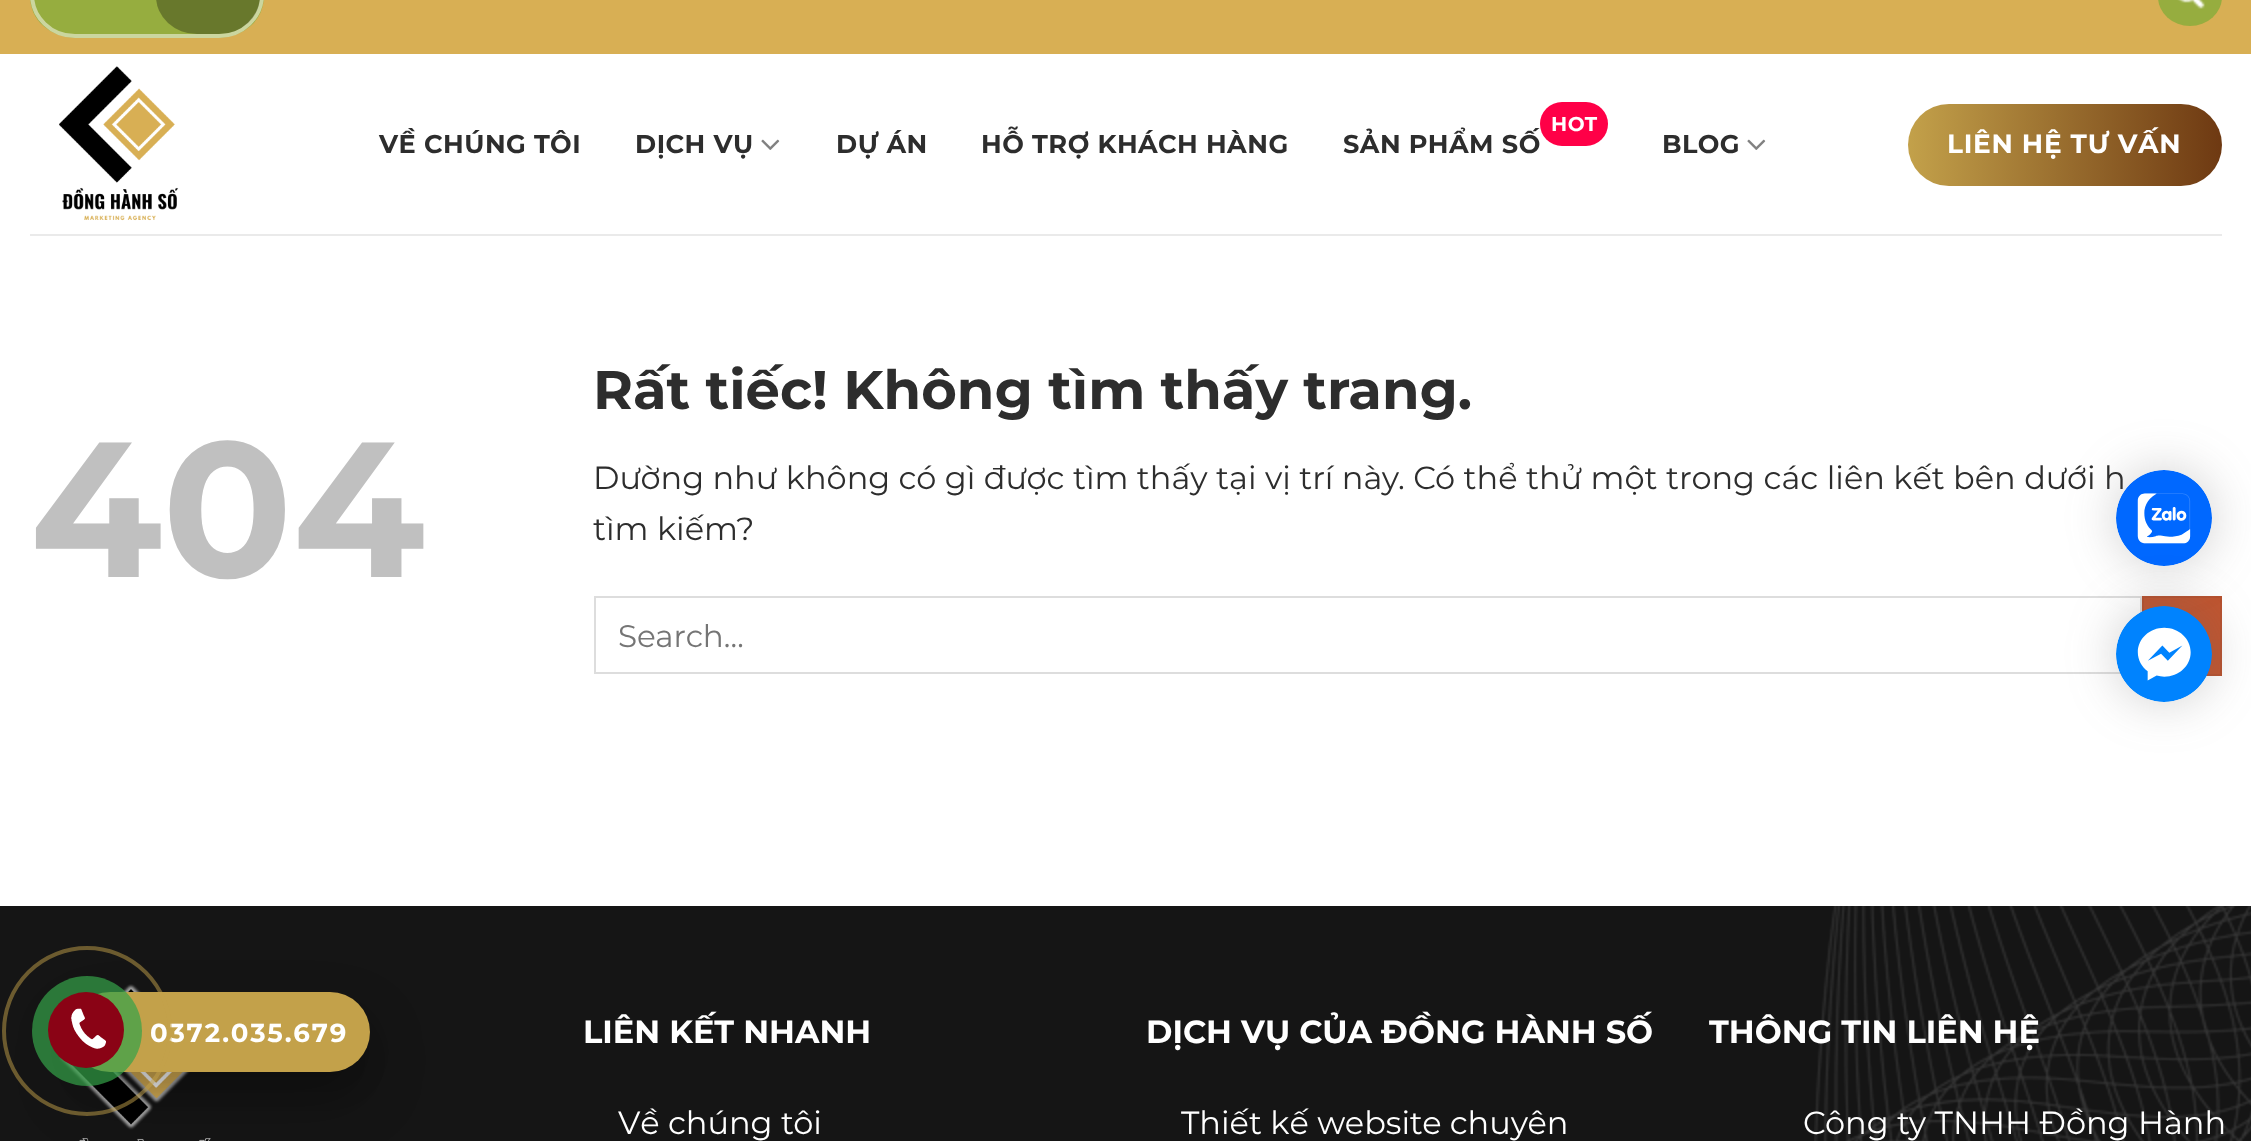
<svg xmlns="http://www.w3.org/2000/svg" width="2251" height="1141">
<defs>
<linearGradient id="g1" gradientUnits="userSpaceOnUse" x1="1908" y1="145" x2="2222" y2="145"><stop offset="0" stop-color="#c3a14a"/><stop offset="1" stop-color="#6e3912"/></linearGradient>
</defs>
<rect width="100%" height="100%" fill="#fff"/>
<rect width="2251" height="54" fill="#d8af54"/>
<rect x="30" y="-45" width="234" height="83" rx="45" fill="#96ad3f"/>
<rect x="32" y="-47" width="230" height="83" rx="43" fill="none" stroke="#ffffff80" stroke-width="4"/>
<rect x="156" y="-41" width="104" height="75" rx="41" fill="#0000004d"/>
<rect x="2158" y="-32" width="64" height="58" rx="32" fill="#96ad3f"/>
<image x="2177" y="0" width="28" height="9" href="media/1.png"/>
<image x="59" y="66" width="120" height="155" href="media/2.png"/>
<text x="379" y="153" style="font-family:Montserrat;font-size:25.6px;font-weight:bold;letter-spacing:0.5px;fill:#2d2d2d">VỀ CHÚNG TÔI</text>
<text x="635" y="153" style="font-family:Montserrat;font-size:25.6px;font-weight:bold;letter-spacing:0.5px;fill:#2d2d2d">DỊCH VỤ</text>
<image x="761" y="139" width="19" height="11" href="media/3.png"/>
<text x="836" y="153" style="font-family:Montserrat;font-size:25.6px;font-weight:bold;letter-spacing:0.5px;fill:#2d2d2d">DỰ ÁN</text>
<text x="981" y="153" style="font-family:Montserrat;font-size:25.6px;font-weight:bold;letter-spacing:0.5px;fill:#2d2d2d">HỖ TRỢ KHÁCH HÀNG</text>
<rect x="1540" y="102" width="68" height="44" rx="22" fill="#ff0047"/>
<text x="1551" y="131" style="font-family:Montserrat;font-size:20px;font-weight:bold;letter-spacing:0.5px;fill:#fff">HOT</text>
<text x="1343" y="153" style="font-family:Montserrat;font-size:25.6px;font-weight:bold;letter-spacing:0.5px;fill:#2d2d2d">SẢN PHẨM SỐ</text>
<text x="1662" y="153" style="font-family:Montserrat;font-size:25.6px;font-weight:bold;letter-spacing:0.5px;fill:#2d2d2d">BLOG</text>
<image x="1747" y="139" width="19" height="11" href="media/3.png"/>
<rect x="1908" y="104" width="314" height="82" rx="41" fill="url(#g1)"/>
<text x="1947" y="153" style="font-family:Montserrat;font-size:26.4px;font-weight:bold;letter-spacing:0.75px;fill:#fff">LIÊN HỆ TƯ VẤN</text>
<rect x="30" y="234" width="2192" height="2" fill="#eaeaea"/>
<text x="30" y="577" style="font-family:Montserrat;font-size:192px;font-weight:bold;fill:#c0c0c0">404</text>
<text x="593" y="409" style="font-family:Montserrat;font-size:54.4px;font-weight:bold;fill:#2d2d2d">Rất tiếc! Không tìm thấy trang.</text>
<text x="593" y="489" style="font-family:Montserrat;font-size:32px;fill:#2d2d2d">Dường như không có gì được tìm thấy tại vị trí này. Có thể thử một trong các liên kết bên dưới h</text>
<text x="593" y="540" style="font-family:Montserrat;font-size:32px;fill:#2d2d2d">tìm kiếm?</text>
<rect x="595" y="597" width="1546" height="76" fill="none" stroke="#ddd" stroke-width="2"/>
<text x="618" y="647" style="font-family:Montserrat;font-size:31px;fill:#757575">Search…</text>
<rect x="2143" y="597" width="78" height="78" fill="#c05530" stroke="#b6512e" stroke-width="2"/>
<rect y="906" width="2251" height="235" fill="#151515"/>
<image x="1814" y="906" width="437" height="235" href="media/4.png"/>
<image x="59" y="984" width="152" height="157" href="media/5.png"/>
<text x="583" y="1043" style="font-family:Montserrat;font-size:32px;font-weight:bold;fill:#fff">LIÊN KẾT NHANH</text>
<text x="618" y="1134" style="font-family:Montserrat;font-size:32px;fill:#fff">Về chúng tôi</text>
<text x="1146" y="1043" style="font-family:Montserrat;font-size:32px;font-weight:bold;fill:#fff">DỊCH VỤ CỦA ĐỒNG HÀNH SỐ</text>
<text x="1181" y="1134" style="font-family:Montserrat;font-size:32px;fill:#fff">Thiết kế website chuyên</text>
<text x="1709" y="1043" style="font-family:Montserrat;font-size:32px;font-weight:bold;fill:#fff">THÔNG TIN LIÊN HỆ</text>
<text x="1803" y="1134" style="font-family:Montserrat;font-size:32px;fill:#fff">Công ty TNHH Đồng Hành</text>
<rect x="2116" y="470" width="96" height="96" rx="48" fill="#6461614d" filter="blur(25px)"/>
<image x="2116" y="470" width="96" height="96" href="media/6.png"/>
<rect x="2116" y="606" width="96" height="96" rx="48" fill="#6461614d" filter="blur(25px)"/>
<image x="2116" y="606" width="96" height="96" href="media/7.png"/>
<rect x="70" y="1012" width="300" height="80" rx="40" fill="#0000001a" filter="blur(10px)"/>
<rect x="70" y="1020" width="300" height="80" rx="40" fill="#00000040" filter="blur(28px)"/>
<rect x="70" y="992" width="300" height="80" rx="40" fill="#c3a14a"/>
<text x="150" y="1042" style="font-family:Montserrat;font-size:26px;font-weight:bold;letter-spacing:2px;fill:#fff">0372.035.679</text>
<circle cx="87" cy="1031" r="83" fill="none" stroke="#c3a14a80" stroke-width="4"/>
<circle cx="87" cy="1031" r="55" fill="#35a249b3"/>
<circle cx="86" cy="1030" r="38" fill="#8a0315"/>
<image x="71" y="1008" width="35" height="41" href="media/8.png"/>
</svg>
